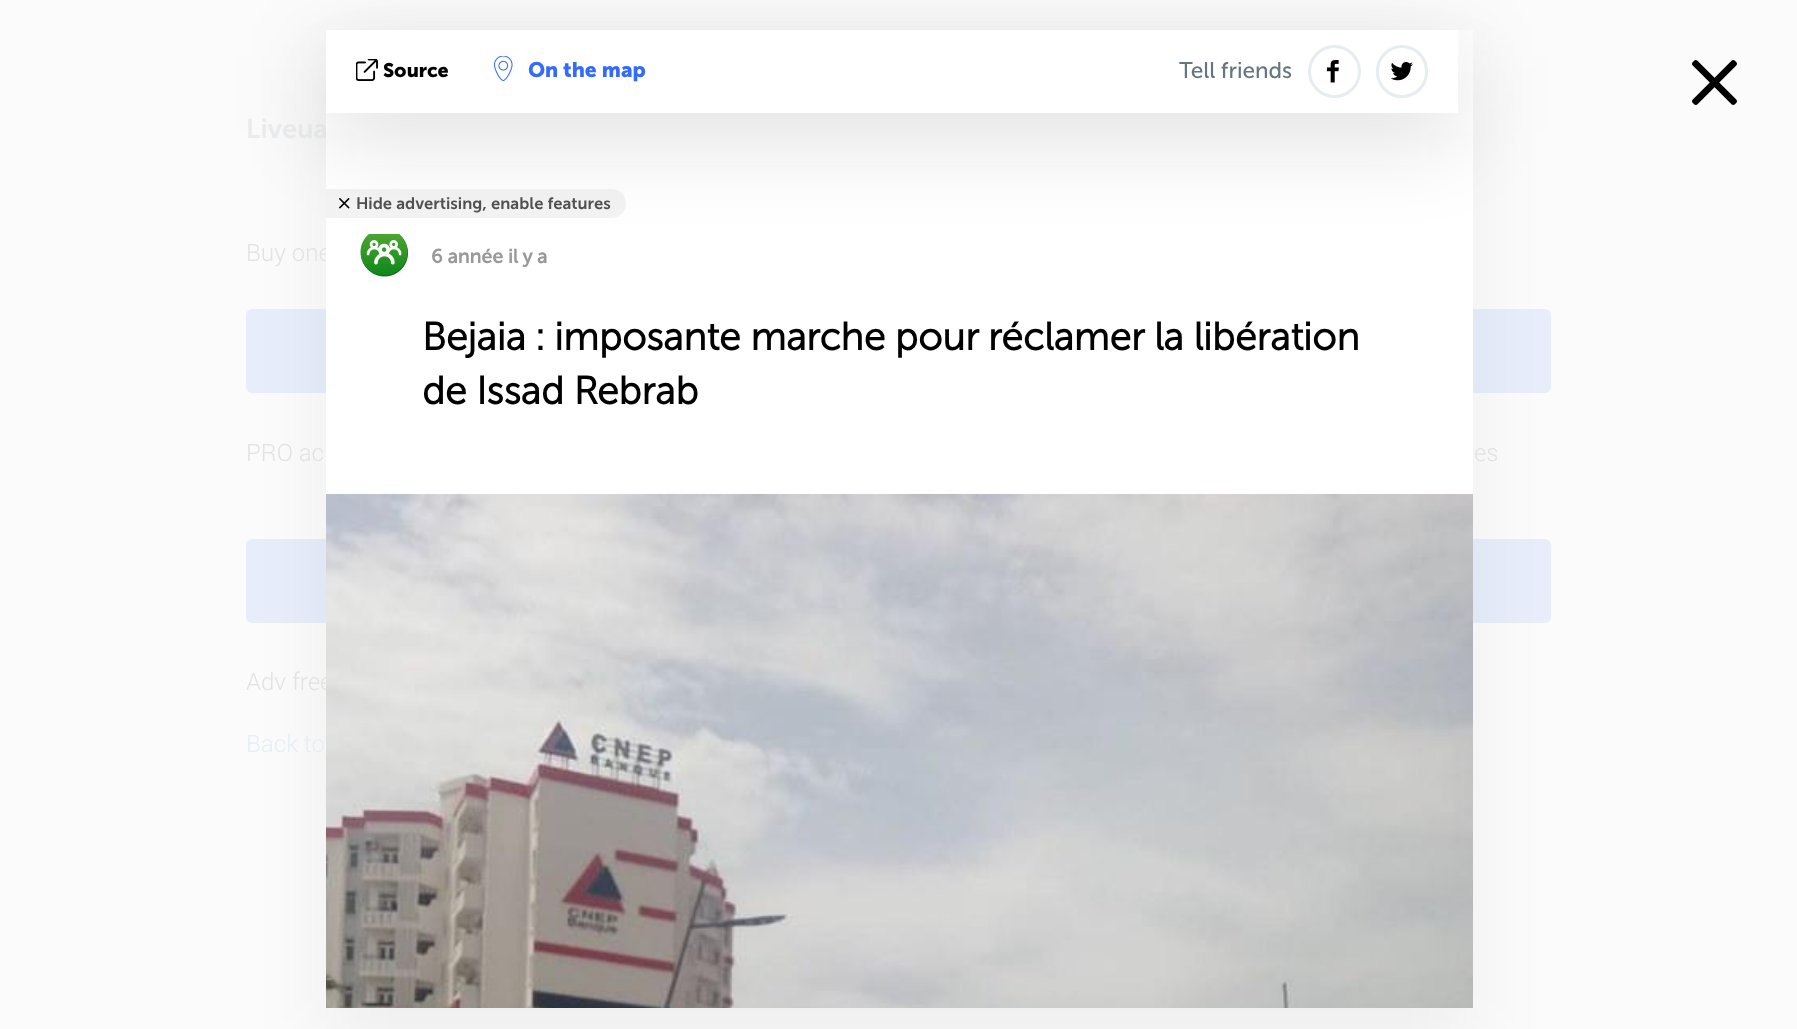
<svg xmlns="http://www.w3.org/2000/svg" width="1797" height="1029">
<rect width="100%" height="100%" fill="#fbfbfb"/>
<rect x="246" y="309" width="1305" height="84" rx="6" fill="#e7edfb"/>
<rect x="246" y="539" width="1305" height="84" rx="6" fill="#e7edfb"/>
<rect x="326" y="68" width="1147" height="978" fill="#0000000d" filter="blur(37.5px)"/>
<text x="246" y="138" style="font-family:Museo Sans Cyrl;font-size:27px;font-weight:600;fill:#ebeced">Liveua</text>
<text x="246" y="261" style="font-family:Roboto;font-size:24px;font-weight:300;fill:#e2e2e2">Buy one</text>
<rect x="326" y="30" width="1147" height="464" fill="#fff"/>
<path d="M326 189h285.5c8 0 14.5 6.5 14.5 14.5c0 8-6.5 14.5-14.5 14.5h-285.5z" fill="#f3f3f3"/>
<image x="339" y="198" width="11" height="11" href="media/6.png"/>
<image x="360" y="234" width="48" height="43" href="media/7.png"/>
<rect x="326" y="53" width="1132" height="82" fill="#100f0f24" filter="blur(45px)"/>
<rect x="326" y="30" width="1132" height="83" fill="#fff"/>
<image x="356" y="59" width="22" height="22" href="media/1.png"/>
<text x="383" y="77" style="font-family:'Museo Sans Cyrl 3';font-size:19.5px;font-weight:bold;fill:#000">Source</text>
<image x="494" y="56" width="19" height="25" href="media/2.png"/>
<text x="528" y="77" style="font-family:'Museo Sans Cyrl 3';font-size:21px;font-weight:bold;fill:#346afe">On the map</text>
<text x="1179" y="78" style="font-family:Museo Sans Cyrl;font-size:22.5px;fill:#66757f">Tell friends</text>
<image x="1326" y="60" width="13" height="23" href="media/3.png"/>
<circle cx="1334.5" cy="71.5" r="25" fill="none" stroke="#e6ecef" stroke-width="3"/>
<image x="1391" y="62" width="22" height="19" href="media/4.png"/>
<rect x="1377.5" y="46.5" width="49" height="50" rx="24.5" fill="none" stroke="#e6ecef" stroke-width="3"/>
<image x="1692" y="60" width="45" height="45" href="media/5.png"/>
<text x="356" y="209" style="font-family:Museo Sans Cyrl;font-size:16.5px;font-weight:600;fill:#505050">Hide advertising, enable features</text>
<text x="431" y="263" style="font-family:'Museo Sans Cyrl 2';font-size:19.5px;font-weight:bold;fill:#999">6 année il y a</text>
<text x="422" y="350" style="font-family:Museo Sans Cyrl;font-size:39px;font-weight:bold;fill:#000">Bejaia : imposante marche pour réclamer la libération</text>
<text x="422" y="404" style="font-family:Museo Sans Cyrl;font-size:39px;font-weight:bold;fill:#000">de Issad Rebrab</text>
<text x="246" y="690" style="font-family:Roboto;font-size:24px;font-weight:300;fill:#e2e2e2">Adv free</text>
<image x="326" y="494" width="1147" height="514" href="media/8.png"/>
<text x="246" y="461" style="font-family:Roboto;font-size:24px;font-weight:300;fill:#e2e2e2">PRO ac</text>
<text x="1474" y="461" style="font-family:Roboto;font-size:24px;font-weight:300;fill:#e2e2e2">es</text>
<text x="246" y="752" style="font-family:Roboto;font-size:24px;font-weight:300;fill:#e4eff7">Back to</text>
</svg>
